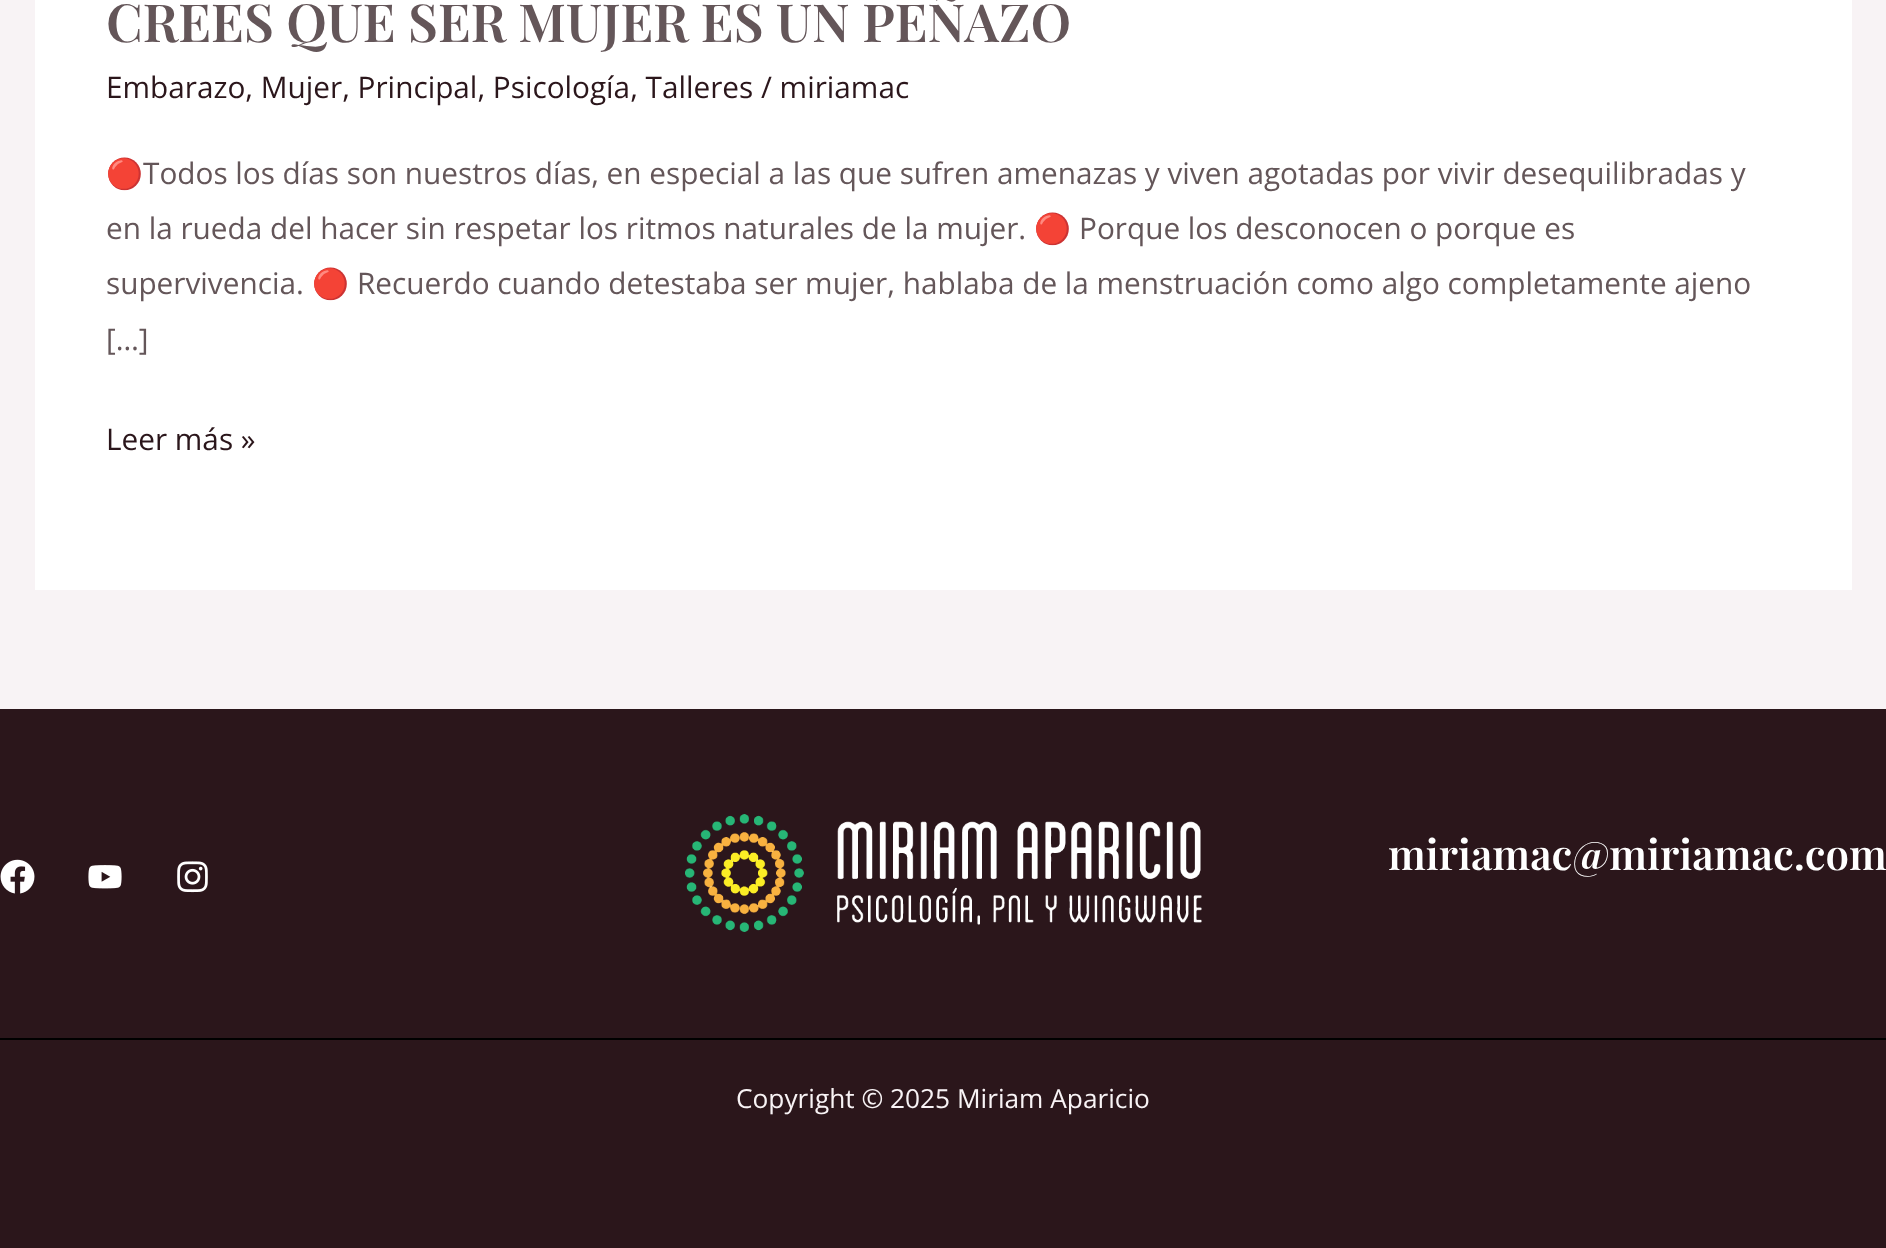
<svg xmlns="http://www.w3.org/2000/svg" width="1886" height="1248">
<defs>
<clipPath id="clip1"><rect x="107" width="1673" height="490"/></clipPath>
</defs>
<rect width="100%" height="100%" fill="#f8f3f5"/>
<rect x="35" width="1817" height="590" fill="#fff"/>
<text x="106" y="42" style="font-family:Playfair Display;font-size:52.5px;font-weight:600;fill:#645659">CREES QUE SER MUJER ES UN PEÑAZO</text>
<text x="106" y="98" style="font-family:Open Sans;font-size:29.75px;fill:#2b161b">Embarazo, Mujer, Principal, Psicología, Talleres / miriamac</text>
<g clip-path="url(#clip1)">
<text x="106" y="184" style="font-family:Noto Color Emoji;font-size:29.75px;fill:#645659">🔴</text>
</g>
<text x="143" y="184" style="font-family:Open Sans;font-size:29.75px;fill:#645659">Todos los días son nuestros días, en especial a las que sufren amenazas y viven agotadas por vivir desequilibradas y</text>
<text x="106" y="239" style="font-family:Open Sans;font-size:29.75px;fill:#645659">en la rueda del hacer sin respetar los ritmos naturales de la mujer.</text>
<text x="1034" y="239" style="font-family:Noto Color Emoji;font-size:29.75px;fill:#645659">🔴</text>
<text x="1079" y="239" style="font-family:Open Sans;font-size:29.75px;fill:#645659">Porque los desconocen o porque es</text>
<text x="106" y="294" style="font-family:Open Sans;font-size:29.75px;fill:#645659">supervivencia.</text>
<text x="312" y="294" style="font-family:Noto Color Emoji;font-size:29.75px;fill:#645659">🔴</text>
<text x="357" y="294" style="font-family:Open Sans;font-size:29.75px;fill:#645659">Recuerdo cuando detestaba ser mujer, hablaba de la menstruación como algo completamente ajeno</text>
<text x="106" y="350" style="font-family:Open Sans;font-size:29.75px;fill:#645659">[…]</text>
<text x="106" y="450" style="font-family:Open Sans;font-size:29.75px;fill:#2b161b">Leer más »</text>
<rect y="709" width="1886" height="329" fill="#2b161b"/>
<image x="0" y="859" width="35" height="35" href="media/1.png"/>
<image x="88" y="865" width="34" height="24" href="media/2.png"/>
<image x="177" y="861" width="31" height="32" href="media/3.png"/>
<image x="685" y="814" width="517" height="118" href="media/4.png"/>
<text x="1388" y="870" style="font-family:Playfair Display;font-size:42px;font-weight:600;fill:#fff">miriamac@miriamac.com</text>
<rect y="1040" width="1886" height="208" fill="#2b161b"/>
<rect y="1038" width="1886" height="2" fill="#000"/>
<text x="736" y="1108" style="font-family:Open Sans;font-size:26.25px;fill:#f8f3f5">Copyright © 2025 Miriam Aparicio</text>
</svg>
